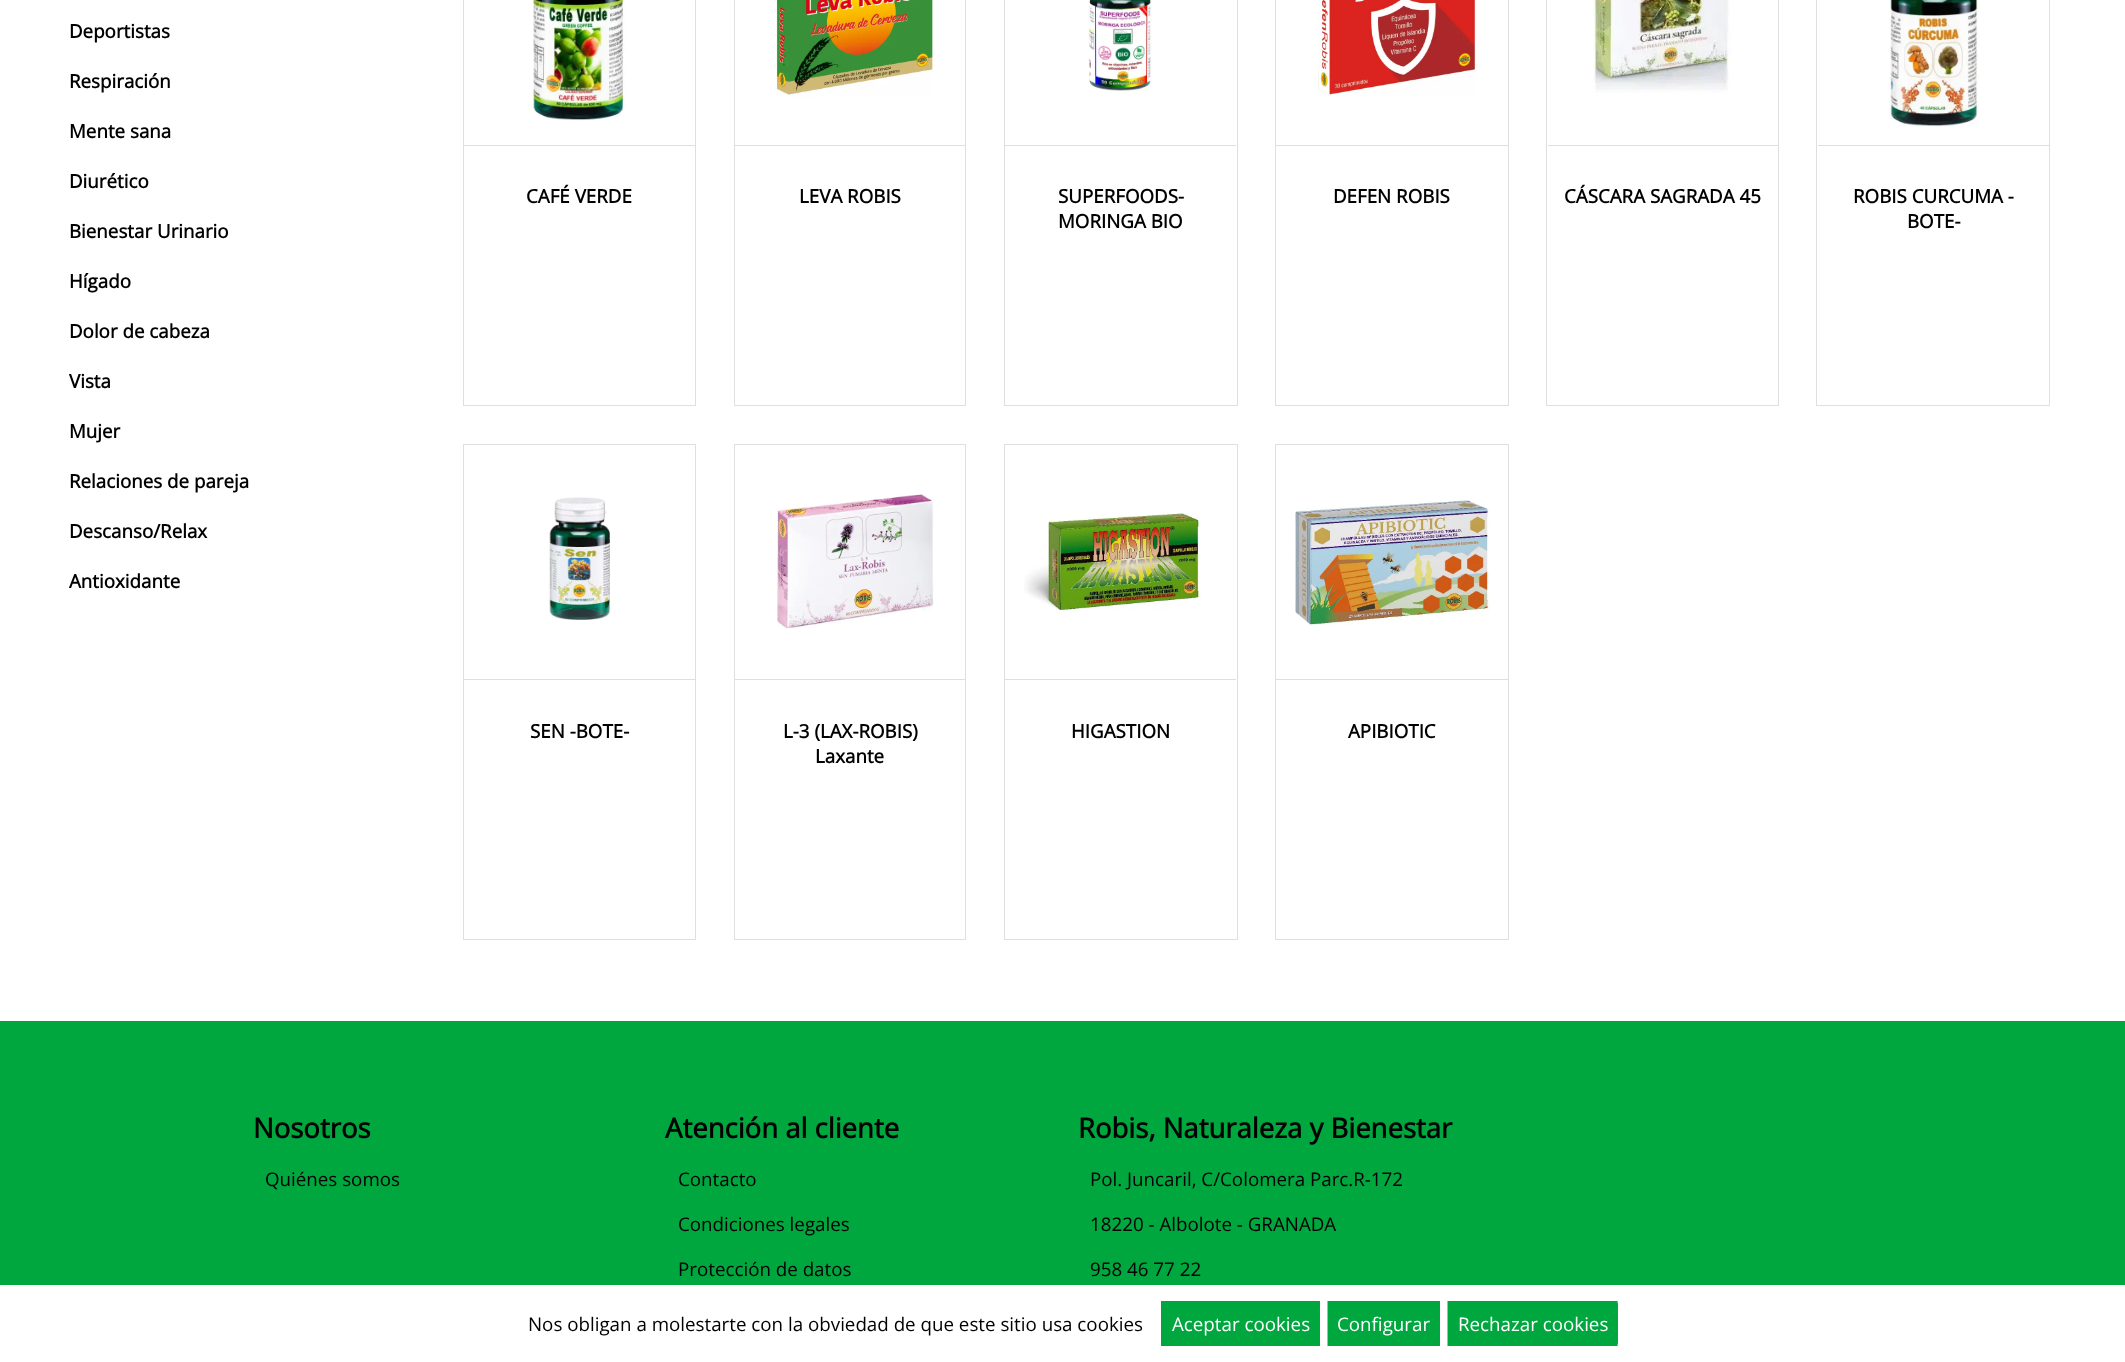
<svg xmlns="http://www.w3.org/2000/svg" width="2125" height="1362">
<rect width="100%" height="100%" fill="#fff"/>
<text x="69" y="38" style="font-family:Open Sans;font-size:18.75px;font-weight:bold;fill:#000">Deportistas</text>
<text x="69" y="88" style="font-family:Open Sans;font-size:18.75px;font-weight:bold;fill:#000">Respiración</text>
<text x="69" y="138" style="font-family:Open Sans;font-size:18.75px;font-weight:bold;fill:#000">Mente sana</text>
<text x="69" y="188" style="font-family:Open Sans;font-size:18.75px;font-weight:bold;fill:#000">Diurético</text>
<text x="69" y="238" style="font-family:Open Sans;font-size:18.75px;font-weight:bold;fill:#000">Bienestar Urinario</text>
<text x="69" y="288" style="font-family:Open Sans;font-size:18.75px;font-weight:bold;fill:#000">Hígado</text>
<text x="69" y="338" style="font-family:Open Sans;font-size:18.75px;font-weight:bold;fill:#000">Dolor de cabeza</text>
<text x="69" y="388" style="font-family:Open Sans;font-size:18.75px;font-weight:bold;fill:#000">Vista</text>
<text x="69" y="438" style="font-family:Open Sans;font-size:18.75px;font-weight:bold;fill:#000">Mujer</text>
<text x="69" y="488" style="font-family:Open Sans;font-size:18.75px;font-weight:bold;fill:#000">Relaciones de pareja</text>
<text x="69" y="538" style="font-family:Open Sans;font-size:18.75px;font-weight:bold;fill:#000">Descanso/Relax</text>
<text x="69" y="588" style="font-family:Open Sans;font-size:18.75px;font-weight:bold;fill:#000">Antioxidante</text>
<rect x="463.5" y="-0.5" width="232" height="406" fill="none" stroke="#dfdfdf"/>
<rect x="464" y="145" width="231" height="1" fill="#dfdfdf"/>
<image x="532" y="0" width="94" height="121" href="media/1.png"/>
<text x="526" y="203" style="font-family:Open Sans;font-size:18.75px;font-weight:bold;fill:#000">CAFÉ VERDE</text>
<rect x="734.5" y="-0.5" width="231" height="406" fill="none" stroke="#dfdfdf"/>
<rect x="735" y="145" width="230" height="1" fill="#dfdfdf"/>
<image x="776" y="0" width="157" height="97" href="media/2.png"/>
<text x="799" y="203" style="font-family:Open Sans;font-size:18.75px;font-weight:bold;fill:#000">LEVA ROBIS</text>
<rect x="1004.5" y="-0.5" width="233" height="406" fill="none" stroke="#dfdfdf"/>
<rect x="1005" y="145" width="231" height="1" fill="#dfdfdf"/>
<image x="1088" y="0" width="64" height="91" href="media/3.png"/>
<text x="1058" y="203" style="font-family:Open Sans;font-size:18.75px;font-weight:bold;fill:#000">SUPERFOODS-</text>
<text x="1058" y="228" style="font-family:Open Sans;font-size:18.75px;font-weight:bold;fill:#000">MORINGA BIO</text>
<rect x="1275.5" y="-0.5" width="233" height="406" fill="none" stroke="#dfdfdf"/>
<rect x="1276" y="145" width="232" height="1" fill="#dfdfdf"/>
<image x="1318" y="0" width="159" height="96" href="media/4.png"/>
<text x="1333" y="203" style="font-family:Open Sans;font-size:18.75px;font-weight:bold;fill:#000">DEFEN ROBIS</text>
<rect x="1546.5" y="-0.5" width="232" height="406" fill="none" stroke="#dfdfdf"/>
<rect x="1548" y="145" width="230" height="1" fill="#dfdfdf"/>
<image x="1593" y="0" width="138" height="93" href="media/5.png"/>
<text x="1564" y="203" style="font-family:Open Sans;font-size:18.75px;font-weight:bold;fill:#000">CÁSCARA SAGRADA 45</text>
<rect x="1816.5" y="-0.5" width="233" height="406" fill="none" stroke="#dfdfdf"/>
<rect x="1818" y="145" width="231" height="1" fill="#dfdfdf"/>
<image x="1889" y="0" width="90" height="127" href="media/6.png"/>
<text x="1853" y="203" style="font-family:Open Sans;font-size:18.75px;font-weight:bold;fill:#000">ROBIS CURCUMA -</text>
<text x="1907" y="228" style="font-family:Open Sans;font-size:18.75px;font-weight:bold;fill:#000">BOTE-</text>
<rect x="463.5" y="444.5" width="232" height="495" fill="none" stroke="#dfdfdf"/>
<rect x="464" y="679" width="231" height="1" fill="#dfdfdf"/>
<image x="549" y="497" width="61" height="123" href="media/7.png"/>
<text x="530" y="738" style="font-family:Open Sans;font-size:18.75px;font-weight:bold;fill:#000">SEN -BOTE-</text>
<rect x="734.5" y="444.5" width="231" height="495" fill="none" stroke="#dfdfdf"/>
<rect x="735" y="679" width="230" height="1" fill="#dfdfdf"/>
<image x="777" y="494" width="157" height="135" href="media/8.png"/>
<text x="783" y="738" style="font-family:Open Sans;font-size:18.75px;font-weight:bold;fill:#000">L-3 (LAX-ROBIS)</text>
<text x="815" y="763" style="font-family:Open Sans;font-size:18.75px;font-weight:bold;fill:#000">Laxante</text>
<rect x="1004.5" y="444.5" width="233" height="495" fill="none" stroke="#dfdfdf"/>
<rect x="1005" y="679" width="231" height="1" fill="#dfdfdf"/>
<image x="1024" y="513" width="177" height="98" href="media/9.png"/>
<text x="1071" y="738" style="font-family:Open Sans;font-size:18.75px;font-weight:bold;fill:#000">HIGASTION</text>
<rect x="1275.5" y="444.5" width="233" height="495" fill="none" stroke="#dfdfdf"/>
<rect x="1276" y="679" width="232" height="1" fill="#dfdfdf"/>
<image x="1295" y="500" width="195" height="126" href="media/10.png"/>
<text x="1348" y="738" style="font-family:Open Sans;font-size:18.75px;font-weight:bold;fill:#000">APIBIOTIC</text>
<rect y="1021" width="2125" height="264" fill="#00a63e"/>
<text x="253" y="1138" style="font-family:Open Sans;font-size:27.5px;font-weight:bold;fill:#000">Nosotros</text>
<text x="265" y="1186" style="font-family:Open Sans;font-size:18.75px;fill:#000">Quiénes somos</text>
<text x="665" y="1138" style="font-family:Open Sans;font-size:27.5px;font-weight:bold;fill:#000">Atención al cliente</text>
<text x="678" y="1186" style="font-family:Open Sans;font-size:18.75px;fill:#000">Contacto</text>
<text x="678" y="1231" style="font-family:Open Sans;font-size:18.75px;fill:#000">Condiciones legales</text>
<text x="678" y="1276" style="font-family:Open Sans;font-size:18.75px;fill:#000">Protección de datos</text>
<text x="1078" y="1138" style="font-family:Open Sans;font-size:27.5px;font-weight:bold;fill:#000">Robis, Naturaleza y Bienestar</text>
<text x="1090" y="1186" style="font-family:Open Sans;font-size:18.75px;fill:#000">Pol. Juncaril, C/Colomera Parc.R-172</text>
<text x="1090" y="1231" style="font-family:Open Sans;font-size:18.75px;fill:#000">18220 - Albolote - GRANADA</text>
<text x="1090" y="1276" style="font-family:Open Sans;font-size:18.75px;fill:#000">958 46 77 22</text>
<text x="528" y="1331" style="font-family:Open Sans;font-size:18.75px;fill:#000">Nos obligan a molestarte con la obviedad de que este sitio usa cookies</text>
<rect x="1171" y="1311" width="139" height="25" fill="#00a63e"/>
<path d="M1166 1306h149v35h-149z" fill="none" stroke="#00a63e" stroke-width="10"/>
<text x="1172" y="1331" style="font-family:Open Sans;font-size:18.75px;fill:#fff">Aceptar cookies</text>
<rect x="1337" y="1311" width="93" height="25" fill="#00a63e"/>
<path d="M1332.5 1306h102.5v35h-102.5z" fill="none" stroke="#00a63e" stroke-width="10"/>
<text x="1337" y="1331" style="font-family:Open Sans;font-size:18.75px;fill:#fff">Configurar</text>
<rect x="1448" y="1301" width="170" height="45" rx="4" fill="#00a63e"/>
<path d="M1452.5 1306h160v35h-160z" fill="none" stroke="#00a63e" stroke-width="10"/>
<text x="1458" y="1331" style="font-family:Open Sans;font-size:18.75px;fill:#fff">Rechazar cookies</text>
</svg>
